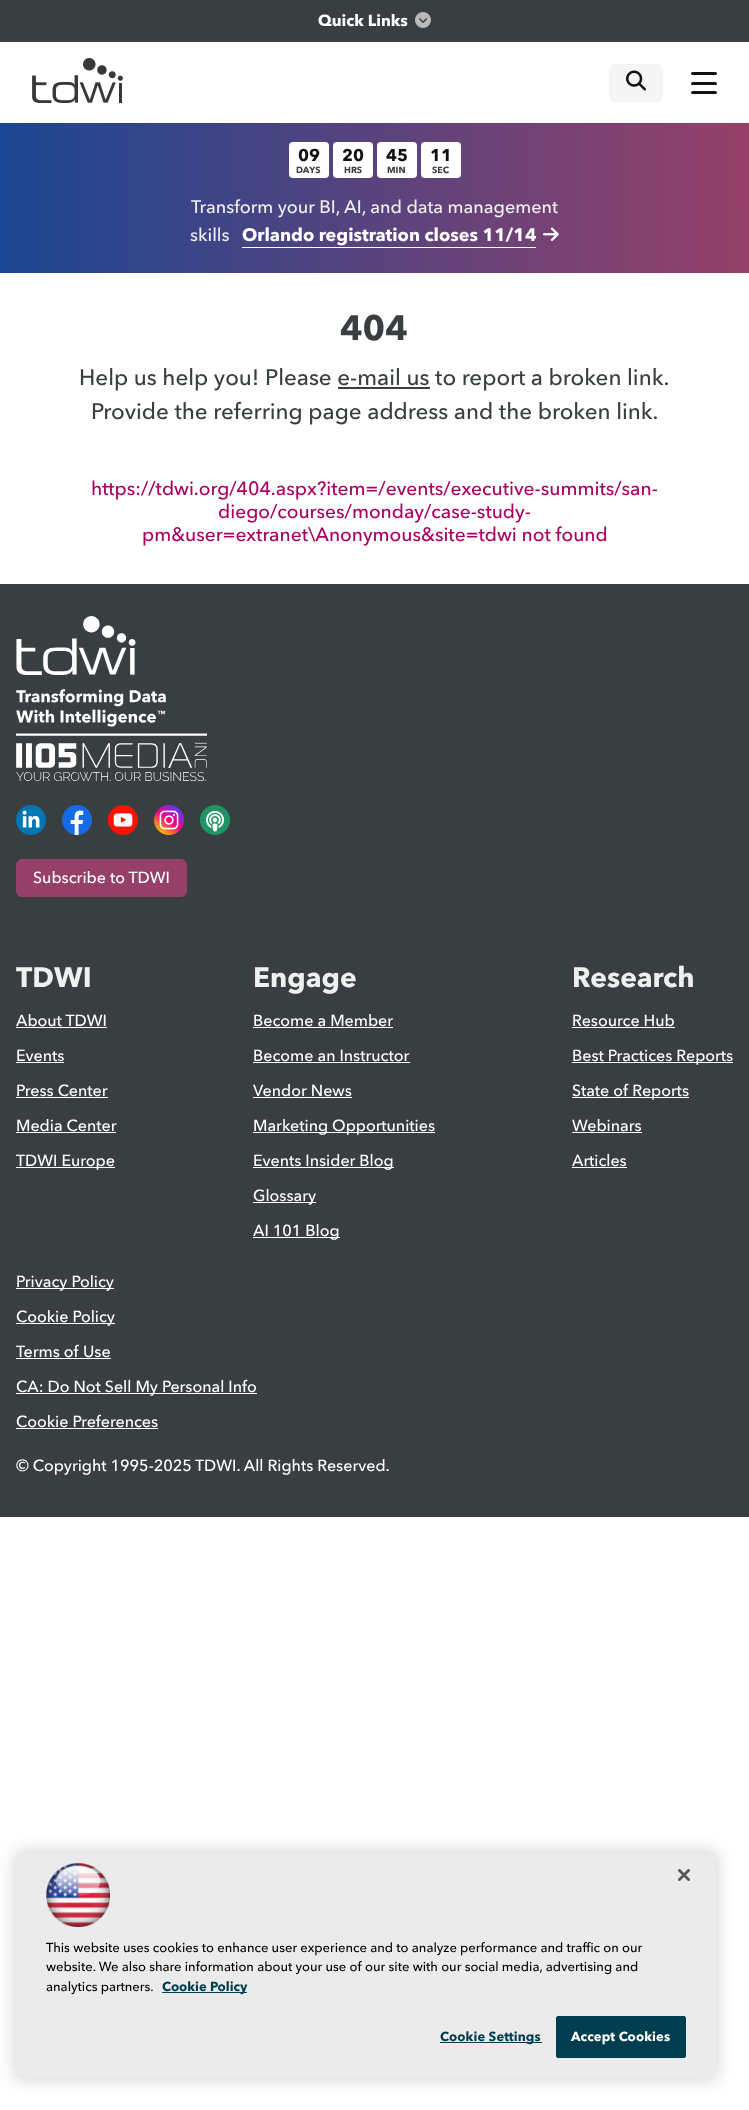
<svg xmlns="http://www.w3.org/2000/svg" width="749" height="2110">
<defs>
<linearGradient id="g1" gradientUnits="userSpaceOnUse" x1="0" y1="125" x2="749" y2="124"><stop offset="0" stop-color="#1b4692"/><stop offset="1" stop-color="#964069"/></linearGradient>
<linearGradient id="g2" gradientUnits="userSpaceOnUse" x1="0" y1="200" x2="749" y2="199"><stop offset="0" stop-color="#1b4692"/><stop offset="1" stop-color="#964069"/></linearGradient>
</defs>
<rect width="100%" height="100%" fill="#fff"/>
<rect width="749" height="42" fill="#393e41"/>
<text x="318" y="26" style="font-family:Avenir Next;font-size:16px;font-weight:bold;fill:#fff">Quick Links</text>
<image x="415" y="12" width="16" height="16" href="media/1.png"/>
<image x="32" y="58" width="91" height="45" href="media/2.png"/>
<rect x="609" y="64" width="54" height="38" rx="6" fill="#f5f5f5"/>
<image x="626" y="70" width="20" height="21" href="media/3.png"/>
<rect x="691" y="72" width="26" height="3" rx="1.5" fill="#121212"/>
<rect x="691" y="82" width="26" height="3" rx="1.5" fill="#121212"/>
<rect x="691" y="91" width="26" height="3" rx="1.5" fill="#121212"/>
<rect y="123" width="749" height="3" fill="url(#g1)"/>
<rect y="126" width="749" height="147" fill="url(#g2)"/>
<rect x="289" y="142" width="40" height="36" rx="4" fill="#fff"/>
<text x="298" y="161" style="font-family:Avenir Next;font-size:17px;font-weight:bold;fill:#121212">09</text>
<text x="296" y="173" style="font-family:Avenir Next;font-size:9px;font-weight:bold;fill:#393e41">DAYS</text>
<rect x="333" y="142" width="40" height="36" rx="4" fill="#fff"/>
<text x="342" y="161" style="font-family:Avenir Next;font-size:17px;font-weight:bold;fill:#121212">20</text>
<text x="344" y="173" style="font-family:Avenir Next;font-size:9px;font-weight:bold;fill:#393e41">HRS</text>
<rect x="377" y="142" width="40" height="36" rx="4" fill="#fff"/>
<text x="386" y="161" style="font-family:Avenir Next;font-size:17px;font-weight:bold;fill:#121212">45</text>
<text x="387" y="173" style="font-family:Avenir Next;font-size:9px;font-weight:bold;fill:#393e41">MIN</text>
<rect x="421" y="142" width="40" height="36" rx="4" fill="#fff"/>
<text x="430" y="161" style="font-family:Avenir Next;font-size:17px;font-weight:bold;fill:#121212">11</text>
<text x="432" y="173" style="font-family:Avenir Next;font-size:9px;font-weight:bold;fill:#393e41">SEC</text>
<text x="191" y="213" style="font-family:Avenir Next;font-size:18px;font-weight:500;fill:#f0f0f0">Transform your BI, AI, and data management</text>
<text x="190" y="241" style="font-family:Avenir Next;font-size:18px;font-weight:500;fill:#f0f0f0">skills</text>
<text x="242" y="241" style="font-family:Avenir Next;font-size:18px;font-weight:bold;fill:#fff">Orlando registration closes 11/14</text>
<rect x="242" y="247" width="294" height="1" fill="#fff"/>
<image x="543" y="227" width="16" height="14" href="media/4.png"/>
<text x="340" y="340" style="font-family:Avenir Next;font-size:35px;font-weight:bold;fill:#393e41">404</text>
<text x="79" y="385" style="font-family:Avenir Next;font-size:22.4px;font-weight:500;fill:#393e41">Help us help you! Please e-mail us to report a broken link.</text>
<rect x="338" y="387" width="92" height="2" fill="#393e41"/>
<text x="91" y="419" style="font-family:Avenir Next;font-size:22.4px;font-weight:500;fill:#393e41">Provide the referring page address and the broken link.</text>
<text x="91" y="495" style="font-family:Avenir Next;font-size:19.2px;font-weight:500;fill:#a90062">https://tdwi.org/404.aspx?item=/events/executive-summits/san-</text>
<text x="218" y="518" style="font-family:Avenir Next;font-size:19.2px;font-weight:500;fill:#a90062">diego/courses/monday/case-study-</text>
<text x="142" y="541" style="font-family:Avenir Next;font-size:19.2px;font-weight:500;fill:#a90062">pm&amp;user=extranet\Anonymous&amp;site=tdwi not found</text>
<rect y="584" width="749" height="933" fill="#393e41"/>
<image x="16" y="616" width="191" height="165" href="media/5.png"/>
<image x="16" y="805" width="30" height="30" href="media/6.png"/>
<image x="62" y="805" width="30" height="30" href="media/7.png"/>
<image x="108" y="805" width="30" height="30" href="media/8.png"/>
<image x="154" y="805" width="30" height="30" href="media/9.png"/>
<image x="200" y="805" width="30" height="30" href="media/10.png"/>
<rect x="16.5" y="859.5" width="170" height="37" rx="5.5" fill="#964069" stroke="#964069"/>
<text x="33" y="883" style="font-family:Avenir Next;font-size:16px;font-weight:500;fill:#fff">Subscribe to TDWI</text>
<text x="16" y="987" style="font-family:Avenir Next;font-size:28px;font-weight:bold;fill:#f0f0f0">TDWI</text>
<text x="16" y="1026" style="font-family:Avenir Next;font-size:16px;font-weight:500;fill:#fff">About TDWI</text>
<rect x="16" y="1027" width="91" height="1" fill="#fff"/>
<text x="16" y="1061" style="font-family:Avenir Next;font-size:16px;font-weight:500;fill:#fff">Events</text>
<rect x="16" y="1062" width="48" height="1" fill="#fff"/>
<text x="16" y="1096" style="font-family:Avenir Next;font-size:16px;font-weight:500;fill:#fff">Press Center</text>
<rect x="16" y="1097" width="92" height="1" fill="#fff"/>
<text x="16" y="1131" style="font-family:Avenir Next;font-size:16px;font-weight:500;fill:#fff">Media Center</text>
<rect x="16" y="1132" width="100" height="1" fill="#fff"/>
<rect x="16" y="1167" width="99" height="1" fill="#fff"/>
<text x="16" y="1166" style="font-family:Avenir Next;font-size:16px;font-weight:500;fill:#fff">TDWI Europe</text>
<text x="253" y="987" style="font-family:Avenir Next;font-size:28px;font-weight:bold;fill:#f0f0f0">Engage</text>
<text x="253" y="1026" style="font-family:Avenir Next;font-size:16px;font-weight:500;fill:#fff">Become a Member</text>
<rect x="253" y="1027" width="140" height="1" fill="#fff"/>
<text x="253" y="1061" style="font-family:Avenir Next;font-size:16px;font-weight:500;fill:#fff">Become an Instructor</text>
<rect x="253" y="1062" width="157" height="1" fill="#fff"/>
<text x="253" y="1096" style="font-family:Avenir Next;font-size:16px;font-weight:500;fill:#fff">Vendor News</text>
<rect x="253" y="1097" width="99" height="1" fill="#fff"/>
<rect x="253" y="1132" width="182" height="1" fill="#fff"/>
<text x="253" y="1131" style="font-family:Avenir Next;font-size:16px;font-weight:500;fill:#fff">Marketing Opportunities</text>
<rect x="253" y="1167" width="141" height="1" fill="#fff"/>
<text x="253" y="1166" style="font-family:Avenir Next;font-size:16px;font-weight:500;fill:#fff">Events Insider Blog</text>
<rect x="253" y="1202" width="63" height="1" fill="#fff"/>
<text x="253" y="1201" style="font-family:Avenir Next;font-size:16px;font-weight:500;fill:#fff">Glossary</text>
<rect x="253" y="1237" width="87" height="1" fill="#fff"/>
<text x="253" y="1236" style="font-family:Avenir Next;font-size:16px;font-weight:500;fill:#fff">AI 101 Blog</text>
<text x="572" y="987" style="font-family:Avenir Next;font-size:28px;font-weight:bold;fill:#f0f0f0">Research</text>
<text x="572" y="1026" style="font-family:Avenir Next;font-size:16px;font-weight:500;fill:#fff">Resource Hub</text>
<rect x="572" y="1027" width="103" height="1" fill="#fff"/>
<rect x="572" y="1062" width="161" height="1" fill="#fff"/>
<text x="572" y="1061" style="font-family:Avenir Next;font-size:16px;font-weight:500;fill:#fff">Best Practices Reports</text>
<rect x="572" y="1097" width="117" height="1" fill="#fff"/>
<text x="572" y="1096" style="font-family:Avenir Next;font-size:16px;font-weight:500;fill:#fff">State of Reports</text>
<text x="572" y="1131" style="font-family:Avenir Next;font-size:16px;font-weight:500;fill:#fff">Webinars</text>
<rect x="572" y="1132" width="70" height="1" fill="#fff"/>
<text x="572" y="1166" style="font-family:Avenir Next;font-size:16px;font-weight:500;fill:#fff">Articles</text>
<rect x="572" y="1167" width="55" height="1" fill="#fff"/>
<rect x="16" y="1288" width="98" height="1" fill="#fff"/>
<text x="16" y="1287" style="font-family:Avenir Next;font-size:16px;font-weight:500;fill:#fff">Privacy Policy</text>
<rect x="16" y="1323" width="99" height="1" fill="#fff"/>
<text x="16" y="1322" style="font-family:Avenir Next;font-size:16px;font-weight:500;fill:#fff">Cookie Policy</text>
<text x="16" y="1357" style="font-family:Avenir Next;font-size:16px;font-weight:500;fill:#fff">Terms of Use</text>
<rect x="16" y="1358" width="95" height="1" fill="#fff"/>
<rect x="16" y="1393" width="241" height="1" fill="#fff"/>
<text x="16" y="1392" style="font-family:Avenir Next;font-size:16px;font-weight:500;fill:#fff">CA: Do Not Sell My Personal Info</text>
<text x="16" y="1427" style="font-family:Avenir Next;font-size:16px;font-weight:500;fill:#fff">Cookie Preferences</text>
<rect x="16" y="1428" width="142" height="1" fill="#fff"/>
<text x="16" y="1471" style="font-family:Avenir Next;font-size:16px;font-weight:500;fill:#fff">© Copyright 1995-2025</text>
<text x="195" y="1471" style="font-family:Avenir Next;font-size:16px;font-weight:500;fill:#fff">TDWI. All Rights Reserved.</text>
<rect x="16" y="1853" width="700" height="225" rx="2.5" fill="#00000033" filter="blur(9px)"/>
<rect x="16" y="1853" width="700" height="225" rx="2.5" fill="#ebebeb"/>
<image x="678" y="1869" width="12" height="12" href="media/11.png"/>
<image x="46" y="1862" width="64" height="65" href="media/12.png"/>
<text x="46" y="1952" style="font-family:Avenir Next;font-size:13px;font-weight:500;fill:#000">This website uses cookies to enhance user experience and to analyze performance and traffic on our</text>
<text x="46" y="1971" style="font-family:Avenir Next;font-size:13px;font-weight:500;fill:#000">website. We also share information about your use of our site with our social media, advertising and</text>
<text x="46" y="1991" style="font-family:Avenir Next;font-size:13px;font-weight:500;fill:#000">analytics partners.</text>
<rect x="162" y="1992" width="85" height="1" fill="#003d4f"/>
<text x="162" y="1991" style="font-family:Avenir Next;font-size:13px;font-weight:bold;fill:#003d4f">Cookie Policy</text>
<rect x="440" y="2042" width="102" height="1" fill="#003d4f"/>
<text x="440" y="2041" style="font-family:Avenir Next;font-size:13px;font-weight:bold;letter-spacing:0.1px;fill:#003d4f">Cookie Settings</text>
<rect x="556.5" y="2016.5" width="129" height="41" rx="1.5" fill="#003d4f" stroke="#003d4f"/>
<text x="571" y="2041" style="font-family:Avenir Next;font-size:13px;font-weight:bold;letter-spacing:0.1px;fill:#fff">Accept Cookies</text>
</svg>
